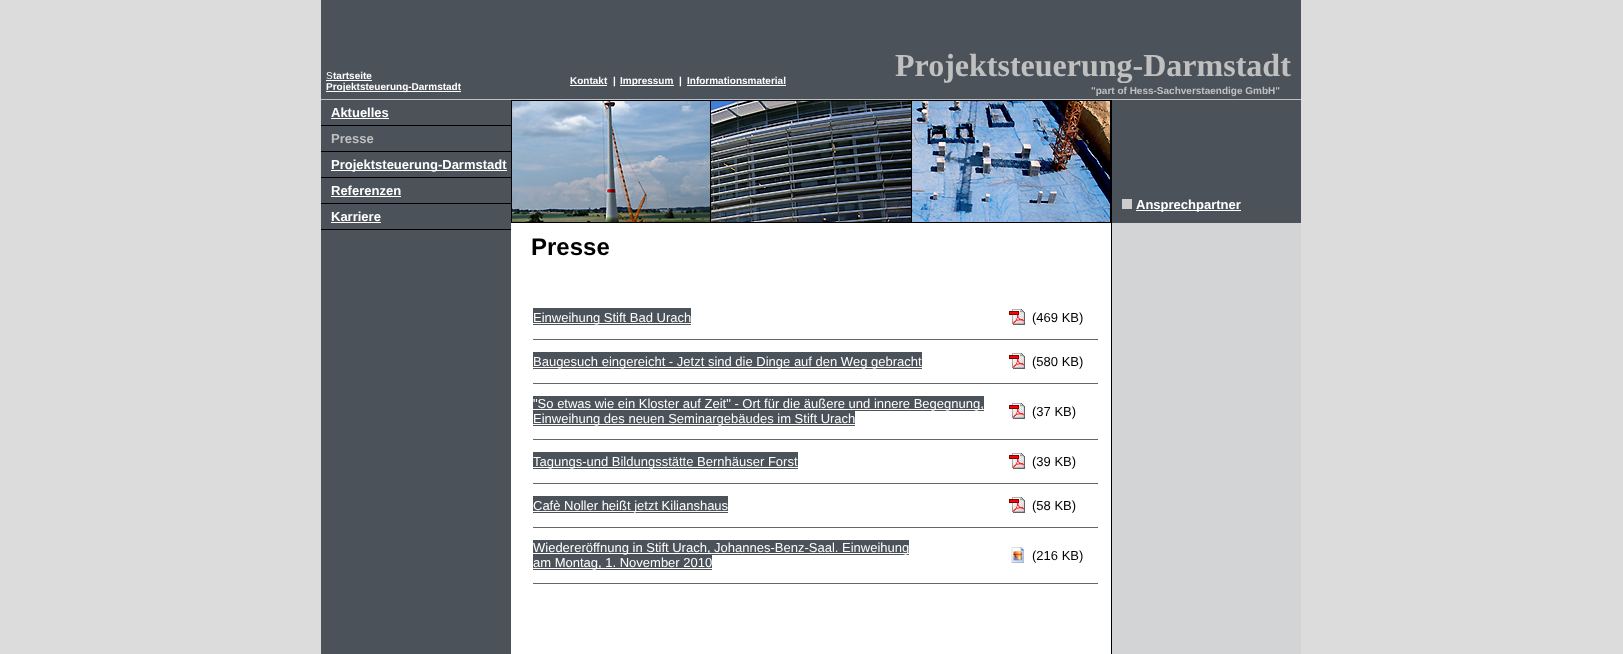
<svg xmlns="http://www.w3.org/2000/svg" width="1623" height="654">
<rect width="100%" height="100%" fill="#dcdcdc"/>
<rect x="321" width="980" height="99" fill="#4b525a"/>
<text x="326" y="79" style="font-family:Liberation Sans;font-size:10px;fill:#fff">S</text>
<rect x="326" y="80" width="46" height="1" fill="#fff"/>
<text x="333" y="79" style="font-family:Liberation Sans;font-size:10px;font-weight:bold;fill:#fff">tartseite</text>
<rect x="326" y="91" width="135" height="1" fill="#fff"/>
<text x="326" y="90" style="font-family:Liberation Sans;font-size:10px;font-weight:bold;fill:#fff">Projektsteuerung-Darmstadt</text>
<text x="570" y="84" style="font-family:Liberation Sans;font-size:10px;font-weight:bold;fill:#fff">Kontakt</text>
<rect x="570" y="85" width="37" height="1" fill="#fff"/>
<text x="613" y="84" style="font-family:Liberation Sans;font-size:10px;font-weight:bold;fill:#fff">|</text>
<rect x="620" y="85" width="54" height="1" fill="#fff"/>
<text x="620" y="84" style="font-family:Liberation Sans;font-size:10px;font-weight:bold;fill:#fff">Impressum</text>
<text x="679" y="84" style="font-family:Liberation Sans;font-size:10px;font-weight:bold;fill:#fff">|</text>
<text x="687" y="84" style="font-family:Liberation Sans;font-size:10px;font-weight:bold;fill:#fff">Informationsmaterial</text>
<rect x="687" y="85" width="99" height="1" fill="#fff"/>
<text x="895" y="76" style="font-family:Liberation Serif;font-size:32px;font-weight:bold;fill:#c0c0c0">Projektsteuerung-Darmstadt</text>
<text x="1091" y="94" style="font-family:Liberation Sans;font-size:10px;font-weight:bold;fill:#c0c0c0">"part of Hess-Sachverstaendige GmbH"</text>
<rect x="321" y="99" width="980" height="1" fill="#c0c0c0"/>
<rect x="321" y="100" width="190" height="25" fill="#4b525a"/>
<text x="331" y="117" style="font-family:Liberation Sans;font-size:13px;font-weight:bold;fill:#fff">Aktuelles</text>
<rect x="331" y="118" width="58" height="1" fill="#fff"/>
<rect x="321" y="125" width="190" height="1" fill="#000"/>
<rect x="321" y="126" width="190" height="25" fill="#4b525a"/>
<text x="331" y="143" style="font-family:Liberation Sans;font-size:13px;font-weight:bold;fill:#c0c0c0">Presse</text>
<rect x="321" y="151" width="190" height="1" fill="#000"/>
<rect x="321" y="152" width="190" height="25" fill="#4b525a"/>
<rect x="331" y="170" width="176" height="1" fill="#fff"/>
<text x="331" y="169" style="font-family:Liberation Sans;font-size:13px;font-weight:bold;fill:#fff">Projektsteuerung-Darmstadt</text>
<rect x="321" y="177" width="190" height="1" fill="#000"/>
<rect x="321" y="178" width="190" height="25" fill="#4b525a"/>
<text x="331" y="195" style="font-family:Liberation Sans;font-size:13px;font-weight:bold;fill:#fff">Referenzen</text>
<rect x="331" y="196" width="70" height="1" fill="#fff"/>
<rect x="321" y="203" width="190" height="1" fill="#000"/>
<rect x="321" y="204" width="190" height="25" fill="#4b525a"/>
<text x="331" y="221" style="font-family:Liberation Sans;font-size:13px;font-weight:bold;fill:#fff">Karriere</text>
<rect x="331" y="222" width="50" height="1" fill="#fff"/>
<rect x="321" y="229" width="190" height="1" fill="#000"/>
<rect x="321" y="230" width="190" height="424" fill="#4b525a"/>
<image x="511" y="100" width="600" height="123" href="media/1.png"/>
<rect x="1111" y="100" width="1" height="554" fill="#000"/>
<rect x="1112" y="100" width="189" height="123" fill="#4b525a"/>
<rect x="1122" y="199" width="10" height="10" fill="#ccc"/>
<rect x="1136" y="210" width="105" height="1" fill="#fff"/>
<text x="1136" y="209" style="font-family:Liberation Sans;font-size:13px;font-weight:bold;fill:#fff">Ansprechpartner</text>
<rect x="511" y="223" width="600" height="431" fill="#fff"/>
<text x="531" y="255" style="font-family:Liberation Sans;font-size:24px;font-weight:bold;fill:#000">Presse</text>
<rect x="533" y="308" width="158" height="17" fill="#4b525a"/>
<rect x="533" y="323" width="158" height="1" fill="#fff"/>
<text x="533" y="322" style="font-family:Liberation Sans;font-size:13px;fill:#fff">Einweihung Stift Bad Urach</text>
<image x="1009" y="309" width="16" height="16" href="media/2.png"/>
<text x="1032" y="322" style="font-family:Liberation Sans;font-size:13px;fill:#000">(469 KB)</text>
<rect x="533" y="339" width="565" height="1" fill="#666"/>
<rect x="533" y="352" width="389" height="17" fill="#4b525a"/>
<rect x="533" y="367" width="389" height="1" fill="#fff"/>
<text x="533" y="366" style="font-family:Liberation Sans;font-size:13px;fill:#fff">Baugesuch eingereicht - Jetzt sind die Dinge auf den Weg gebracht</text>
<image x="1009" y="353" width="16" height="16" href="media/2.png"/>
<text x="1032" y="366" style="font-family:Liberation Sans;font-size:13px;fill:#000">(580 KB)</text>
<rect x="533" y="383" width="565" height="1" fill="#666"/>
<rect x="533" y="396" width="451" height="15" fill="#4b525a"/>
<rect x="533" y="409" width="451" height="1" fill="#fff"/>
<text x="533" y="408" style="font-family:Liberation Sans;font-size:13px;fill:#fff">"So etwas wie ein Kloster auf Zeit" - Ort für die äußere und innere Begegnung,</text>
<rect x="533" y="411" width="322" height="15" fill="#4b525a"/>
<rect x="533" y="424" width="322" height="1" fill="#fff"/>
<text x="533" y="423" style="font-family:Liberation Sans;font-size:13px;fill:#fff">Einweihung des neuen Seminargebäudes im Stift Urach</text>
<image x="1009" y="403" width="16" height="16" href="media/2.png"/>
<text x="1032" y="416" style="font-family:Liberation Sans;font-size:13px;fill:#000">(37 KB)</text>
<rect x="533" y="439" width="565" height="1" fill="#666"/>
<rect x="533" y="452" width="265" height="17" fill="#4b525a"/>
<rect x="533" y="467" width="265" height="1" fill="#fff"/>
<text x="533" y="466" style="font-family:Liberation Sans;font-size:13px;fill:#fff">Tagungs-und Bildungsstätte Bernhäuser Forst</text>
<image x="1009" y="453" width="16" height="16" href="media/2.png"/>
<text x="1032" y="466" style="font-family:Liberation Sans;font-size:13px;fill:#000">(39 KB)</text>
<rect x="533" y="483" width="565" height="1" fill="#666"/>
<rect x="533" y="496" width="195" height="17" fill="#4b525a"/>
<rect x="533" y="511" width="195" height="1" fill="#fff"/>
<text x="533" y="510" style="font-family:Liberation Sans;font-size:13px;fill:#fff">Cafè Noller heißt jetzt Kilianshaus</text>
<image x="1009" y="497" width="16" height="16" href="media/2.png"/>
<text x="1032" y="510" style="font-family:Liberation Sans;font-size:13px;fill:#000">(58 KB)</text>
<rect x="533" y="527" width="565" height="1" fill="#666"/>
<rect x="533" y="540" width="376" height="15" fill="#4b525a"/>
<rect x="533" y="553" width="376" height="1" fill="#fff"/>
<text x="533" y="552" style="font-family:Liberation Sans;font-size:13px;fill:#fff">Wiedereröffnung in Stift Urach, Johannes-Benz-Saal. Einweihung</text>
<rect x="533" y="555" width="179" height="15" fill="#4b525a"/>
<rect x="533" y="568" width="179" height="1" fill="#fff"/>
<text x="533" y="567" style="font-family:Liberation Sans;font-size:13px;fill:#fff">am Montag, 1. November 2010</text>
<image x="1009" y="547" width="15" height="16" href="media/3.png"/>
<text x="1032" y="560" style="font-family:Liberation Sans;font-size:13px;fill:#000">(216 KB)</text>
<rect x="533" y="583" width="565" height="1" fill="#666"/>
<rect x="1112" y="223" width="189" height="431" fill="#d2d4d6"/>
</svg>
